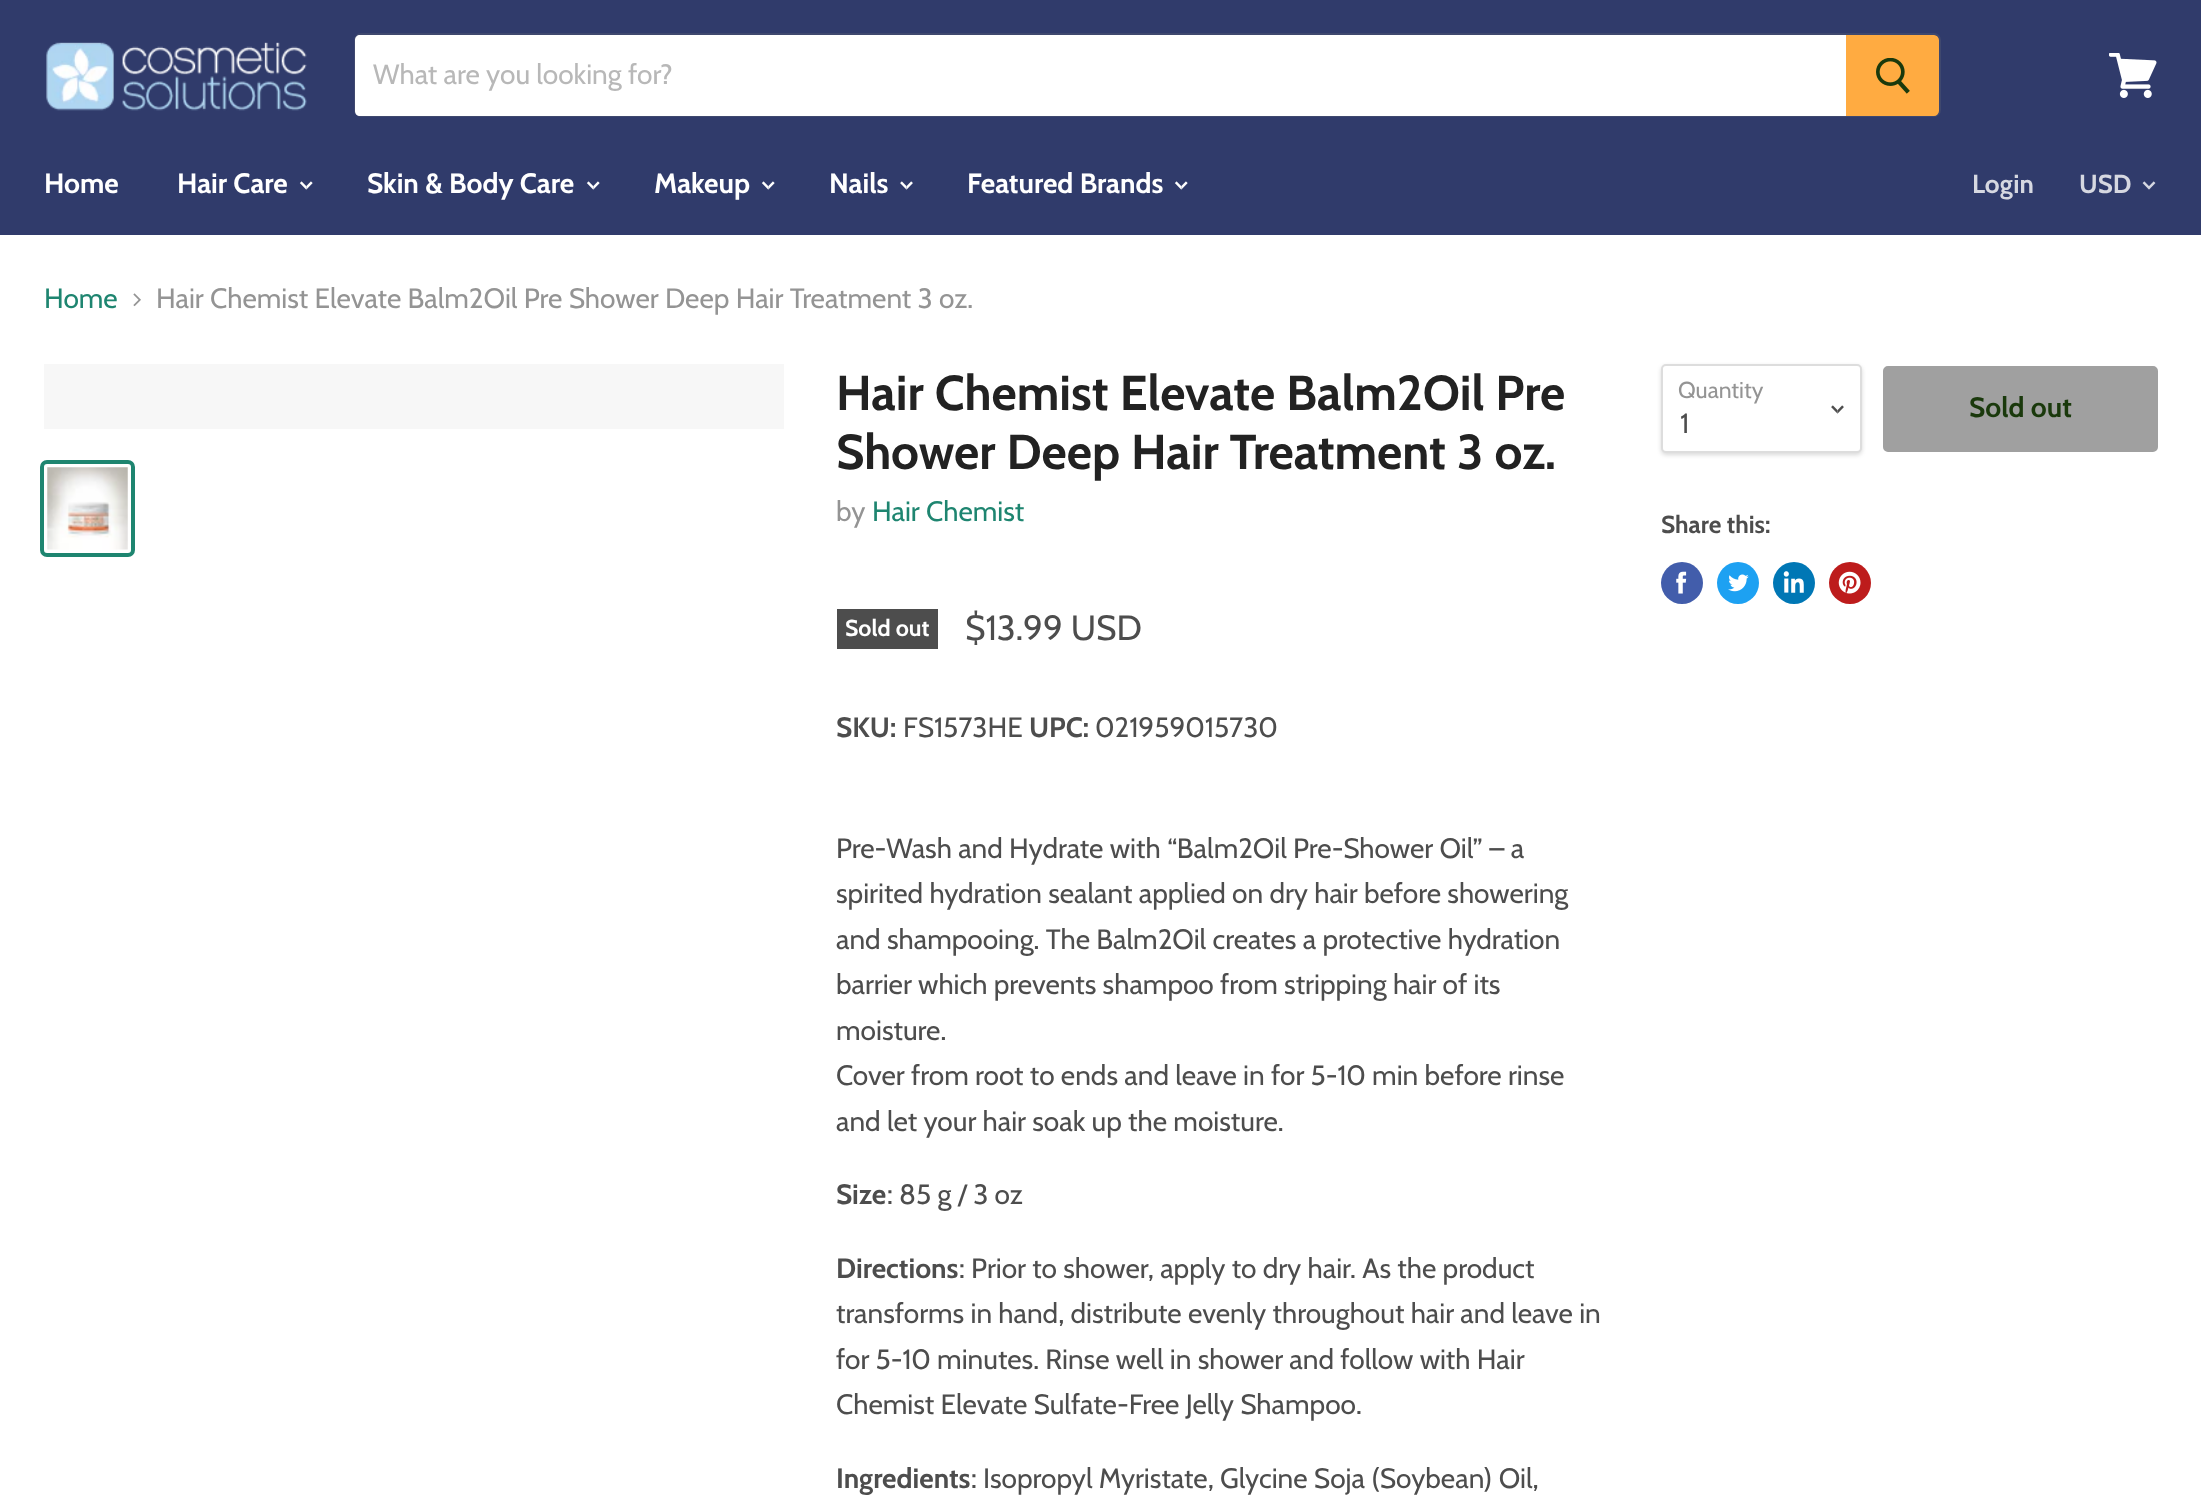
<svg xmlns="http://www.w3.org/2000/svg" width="2201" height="1498">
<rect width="100%" height="100%" fill="#fff"/>
<rect width="2201" height="235" fill="#303b6b"/>
<image x="46" y="42" width="261" height="69" href="media/1.png"/>
<rect x="355" y="34" width="1585" height="82" rx="6" fill="none" stroke="#7f7f7f33" stroke-width="2"/>
<path d="M360 35h1486v81h-1486c-3 0-5-2-5-5v-71c0-3 2-5 5-5z" fill="#fff"/>
<text x="373" y="84" style="font-family:Cabin;font-size:28px;fill:#b8b8b8">What are you looking for?</text>
<path d="M1847 36h87c2 0 4 2 4 4v71c0 2-2 4-4 4h-87z" fill="#ffab41" stroke="#ffab41" stroke-width="2"/>
<image x="1876" y="58" width="34" height="36" href="media/2.png"/>
<image x="2109" y="53" width="48" height="45" href="media/3.png"/>
<text x="44" y="193" style="font-family:Cabin;font-size:28px;font-weight:bold;fill:#fff">Home</text>
<text x="177" y="193" style="font-family:Cabin;font-size:28px;font-weight:bold;fill:#fff">Hair Care</text>
<image x="299" y="181" width="14" height="9" href="media/4.png"/>
<text x="367" y="193" style="font-family:Cabin;font-size:28px;font-weight:bold;fill:#fff">Skin &amp; Body Care</text>
<image x="586" y="181" width="14" height="9" href="media/4.png"/>
<text x="654" y="193" style="font-family:Cabin;font-size:28px;font-weight:bold;fill:#fff">Makeup</text>
<image x="761" y="181" width="14" height="9" href="media/4.png"/>
<text x="829" y="193" style="font-family:Cabin;font-size:28px;font-weight:bold;fill:#fff">Nails</text>
<image x="900" y="181" width="13" height="9" href="media/5.png"/>
<text x="967" y="193" style="font-family:Cabin;font-size:28px;font-weight:bold;fill:#fff">Featured Brands</text>
<image x="1174" y="181" width="14" height="9" href="media/4.png"/>
<text x="1972" y="193" style="font-family:Cabin;font-size:26px;font-weight:bold;fill:#d6d8e1">Login</text>
<text x="2079" y="193" style="font-family:Cabin;font-size:26px;font-weight:bold;fill:#d6d8e1">USD</text>
<image x="2142" y="181" width="14" height="9" href="media/6.png"/>
<text x="44" y="308" style="font-family:Cabin;font-size:28px;fill:#1e8570">Home</text>
<image x="133" y="293" width="8" height="14" href="media/7.png"/>
<text x="156" y="308" style="font-family:Cabin;font-size:28px;fill:#949494">Hair Chemist Elevate Balm2Oil Pre Shower Deep Hair Treatment 3 oz.</text>
<rect x="44" y="364" width="740" height="65" fill="#f7f7f7"/>
<rect x="42" y="462" width="91" height="93" rx="5" fill="none" stroke="#1e8570" stroke-width="4"/>
<image x="47" y="467" width="81" height="83" href="media/8.png"/>
<text x="836" y="410" style="font-family:Cabin;font-size:49px;font-weight:bold;fill:#222">Hair Chemist Elevate Balm2Oil Pre</text>
<text x="836" y="469" style="font-family:Cabin;font-size:49px;font-weight:bold;fill:#222">Shower Deep Hair Treatment 3 oz.</text>
<text x="836" y="521" style="font-family:Cabin;font-size:28px;fill:#949494">by</text>
<text x="872" y="521" style="font-family:Cabin;font-size:28px;fill:#1e8570">Hair Chemist</text>
<rect x="837" y="609" width="101" height="40" fill="#4d4d4d"/>
<text x="845" y="636" style="font-family:Cabin;font-size:23px;font-weight:bold;fill:#fff">Sold out</text>
<text x="965" y="640" style="font-family:Cabin;font-size:35px;fill:#4d4d4d">$13.99 USD</text>
<text x="836" y="737" style="font-family:Cabin;font-size:28px;font-weight:bold;fill:#4d4d4d">SKU:</text>
<text x="903" y="737" style="font-family:Cabin;font-size:28px;fill:#4d4d4d">FS1573HE</text>
<text x="1029" y="737" style="font-family:Cabin;font-size:28px;font-weight:bold;fill:#4d4d4d">UPC:</text>
<text x="1095" y="737" style="font-family:Cabin;font-size:28px;fill:#4d4d4d">021959015730</text>
<text x="836" y="858" style="font-family:Cabin;font-size:28px;fill:#4d4d4d">Pre-Wash and Hydrate with “Balm2Oil Pre-Shower Oil” – a</text>
<text x="836" y="903" style="font-family:Cabin;font-size:28px;fill:#4d4d4d">spirited hydration sealant applied on dry hair before showering</text>
<text x="836" y="949" style="font-family:Cabin;font-size:28px;fill:#4d4d4d">and shampooing. The Balm2Oil creates a protective hydration</text>
<text x="836" y="994" style="font-family:Cabin;font-size:28px;fill:#4d4d4d">barrier which prevents shampoo from stripping hair of its</text>
<text x="836" y="1040" style="font-family:Cabin;font-size:28px;fill:#4d4d4d">moisture.</text>
<text x="836" y="1085" style="font-family:Cabin;font-size:28px;fill:#4d4d4d">Cover from root to ends and leave in for 5-10 min before rinse</text>
<text x="836" y="1131" style="font-family:Cabin;font-size:28px;fill:#4d4d4d">and let your hair soak up the moisture.</text>
<text x="836" y="1204" style="font-family:Cabin;font-size:28px;font-weight:bold;fill:#4d4d4d">Size</text>
<text x="887" y="1204" style="font-family:Cabin;font-size:28px;fill:#4d4d4d">: 85 g / 3 oz</text>
<text x="836" y="1278" style="font-family:Cabin;font-size:28px;font-weight:bold;fill:#4d4d4d">Directions</text>
<text x="959" y="1278" style="font-family:Cabin;font-size:28px;fill:#4d4d4d">: Prior to shower, apply to dry hair. As the product</text>
<text x="836" y="1323" style="font-family:Cabin;font-size:28px;fill:#4d4d4d">transforms in hand, distribute evenly throughout hair and leave in</text>
<text x="836" y="1369" style="font-family:Cabin;font-size:28px;fill:#4d4d4d">for 5-10 minutes. Rinse well in shower and follow with Hair</text>
<text x="836" y="1414" style="font-family:Cabin;font-size:28px;fill:#4d4d4d">Chemist Elevate Sulfate-Free Jelly Shampoo.</text>
<text x="836" y="1488" style="font-family:Cabin;font-size:28px;font-weight:bold;fill:#4d4d4d">Ingredients</text>
<text x="971" y="1488" style="font-family:Cabin;font-size:28px;fill:#4d4d4d">: Isopropyl Myristate, Glycine Soja (Soybean) Oil,</text>
<rect x="1661" y="366" width="201" height="89" rx="5" fill="#00000026" filter="blur(2px)"/>
<rect x="1662" y="365" width="199" height="87" rx="4" fill="#fff" stroke="#ddd" stroke-width="2"/>
<text x="1678" y="398" style="font-family:Cabin;font-size:23px;fill:#949494">Quantity</text>
<image x="1831" y="405" width="13" height="9" href="media/9.png"/>
<text x="1680" y="433" style="font-family:Cabin;font-size:28px;fill:#4d4d4d">1</text>
<rect x="1884" y="367" width="273" height="84" rx="4" fill="#a0a0a0" stroke="#a0a0a0" stroke-width="2"/>
<text x="1969" y="417" style="font-family:Cabin;font-size:28px;font-weight:bold;fill:#1a390c">Sold out</text>
<text x="1661" y="533" style="font-family:Cabin;font-size:24.5px;font-weight:bold;fill:#4d4d4d">Share this:</text>
<circle cx="1682" cy="583" r="21" fill="#425dab"/>
<image x="1676" y="571" width="11" height="23" href="media/10.png"/>
<circle cx="1738" cy="583" r="21" fill="#1da1f2"/>
<image x="1728" y="574" width="21" height="18" href="media/11.png"/>
<circle cx="1794" cy="583" r="21" fill="#0077b5"/>
<image x="1783" y="571" width="21" height="22" href="media/12.png"/>
<circle cx="1850" cy="583" r="21" fill="#bd1c1c"/>
<image x="1838" y="571" width="23" height="23" href="media/13.png"/>
</svg>
